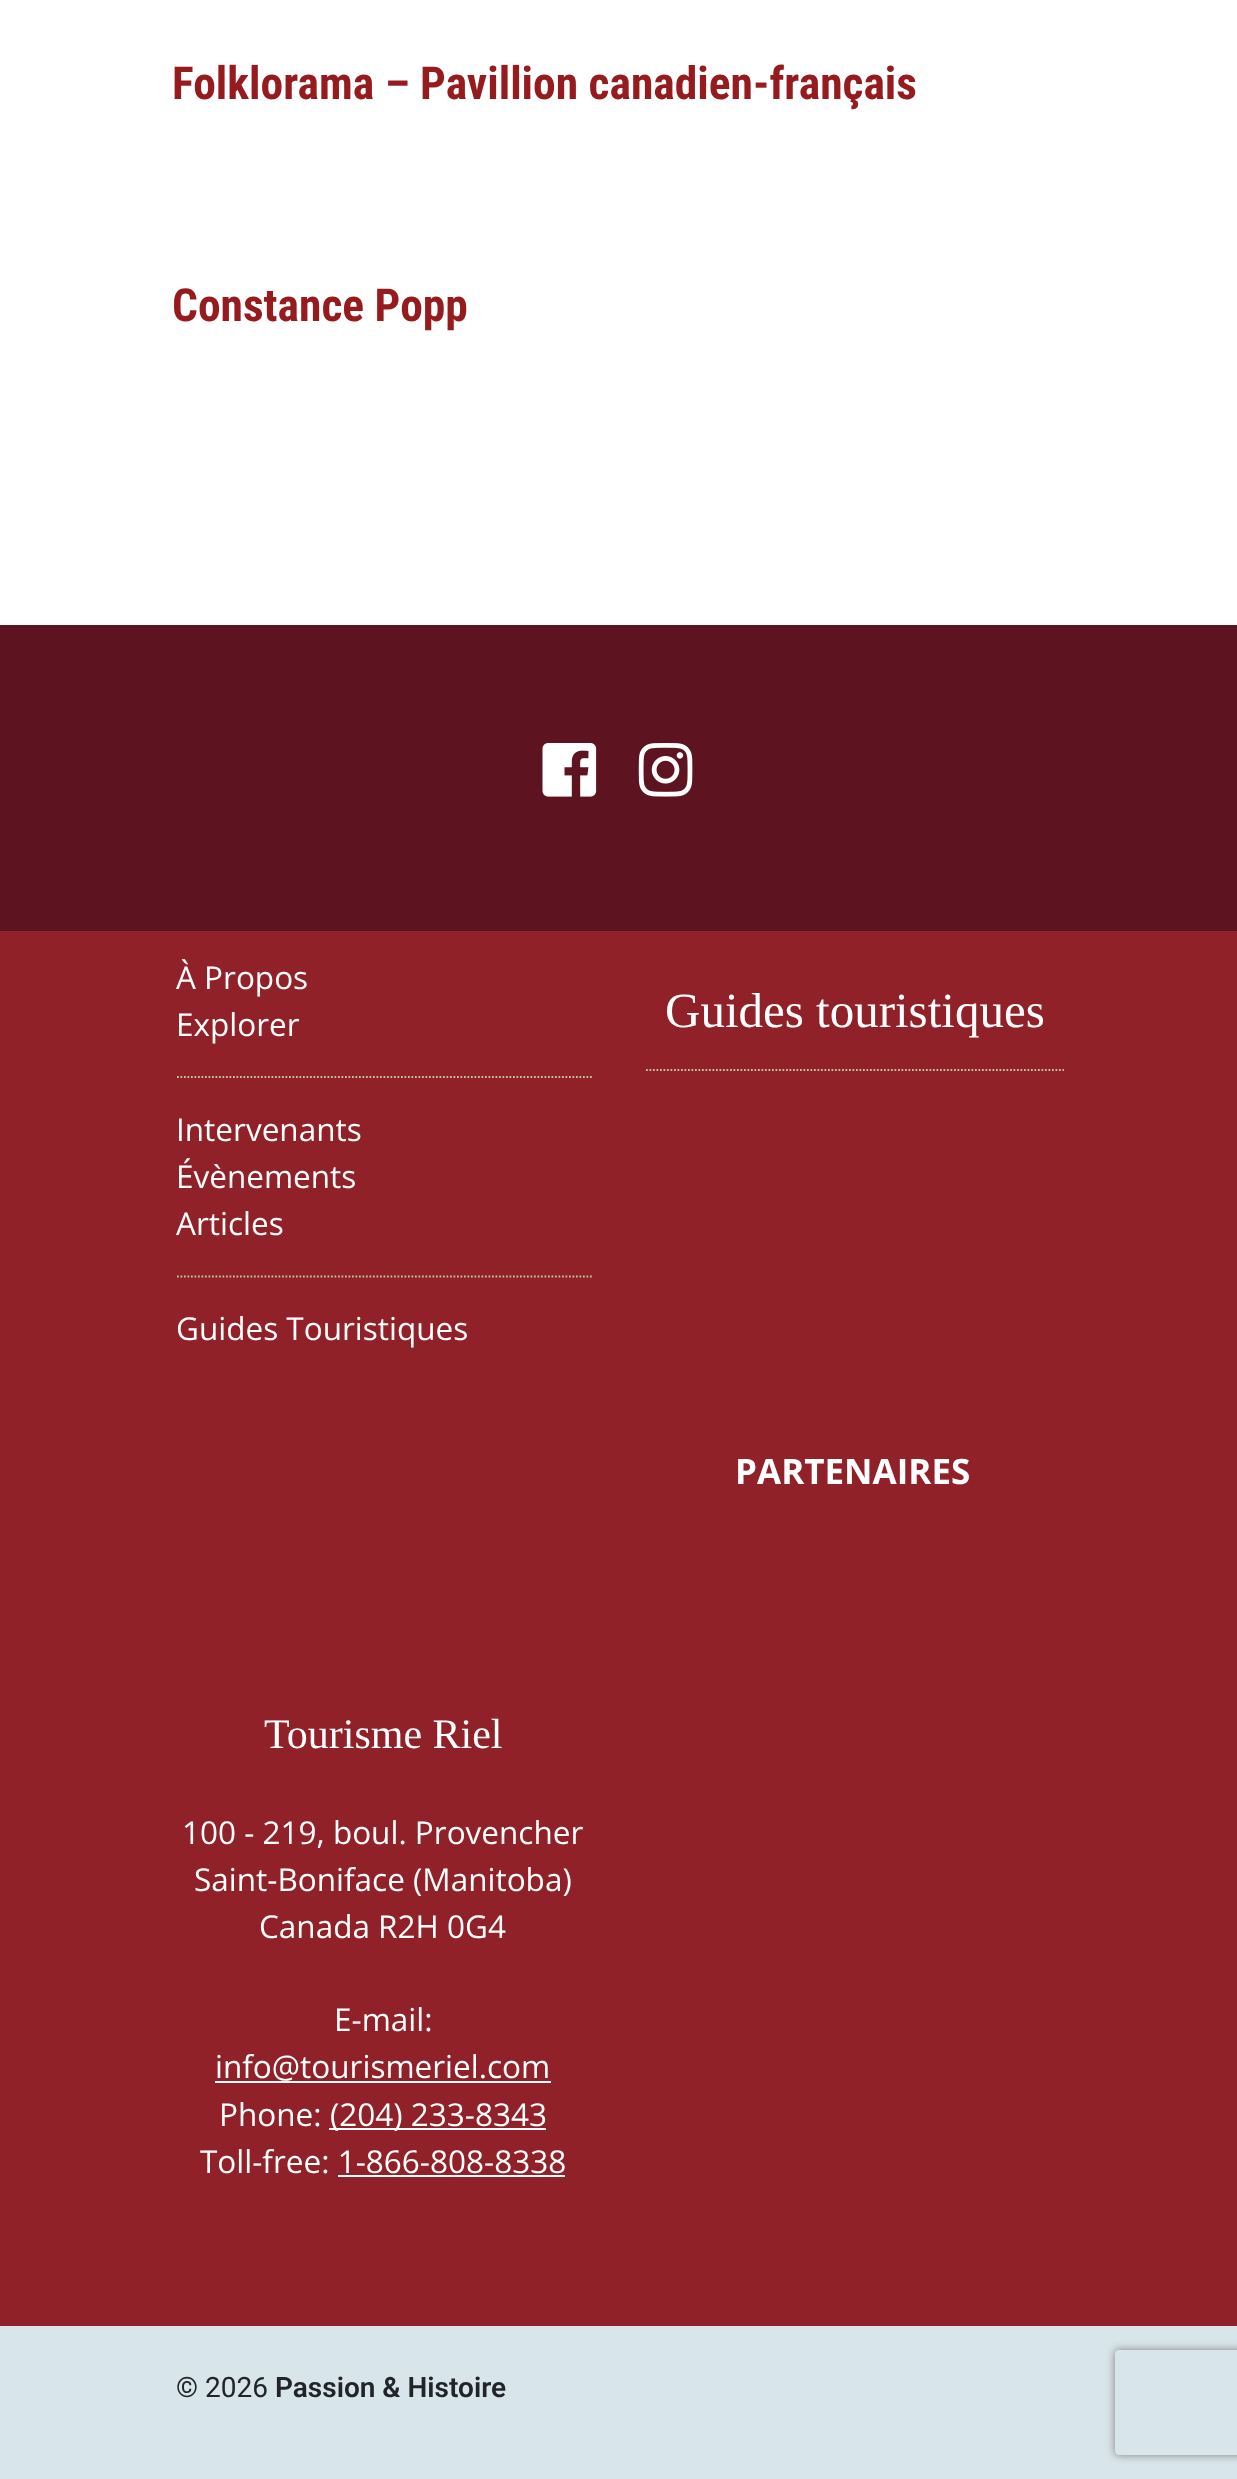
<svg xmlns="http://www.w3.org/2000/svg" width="1237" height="2479">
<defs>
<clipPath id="clip1"><path d="M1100 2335h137v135h-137zm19 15h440c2 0 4 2 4 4v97c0 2-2 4-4 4h-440c-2 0-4-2-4-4v-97c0-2 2-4 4-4z" clip-rule="evenodd"/></clipPath>
</defs>
<rect width="100%" height="100%" fill="#fff"/>
<text x="172" y="99" style="font-family:Roboto Condensed;font-size:45.5px;font-weight:bold;fill:#951b1e">Folklorama – Pavillion canadien-français</text>
<text x="172" y="321" style="font-family:Roboto Condensed;font-size:45.5px;font-weight:bold;fill:#951b1e">Constance Popp</text>
<rect y="931" width="1237" height="1395" fill="#912128"/>
<rect y="625" width="1237" height="306" fill="#5d1320"/>
<image x="542" y="743" width="55" height="54" href="media/1.png"/>
<image x="638" y="743" width="55" height="54" href="media/2.png"/>
<path d="M177 1077h416" fill="none" stroke="#c8c09a" stroke-width="1.8" stroke-dasharray="1.75 1.75"/>
<text x="176" y="989" style="font-family:Open Sans;font-size:31.5px;fill:#fff">À Propos</text>
<text x="176" y="1036" style="font-family:Open Sans;font-size:31.5px;fill:#fff">Explorer</text>
<path d="M177 1276.5h416" fill="none" stroke="#c8c09a" stroke-width="1.8" stroke-dasharray="1.75 1.75"/>
<text x="176" y="1141" style="font-family:Open Sans;font-size:31.5px;fill:#fff">Intervenants</text>
<text x="176" y="1188" style="font-family:Open Sans;font-size:31.5px;fill:#fff">Évènements</text>
<text x="176" y="1235" style="font-family:Open Sans;font-size:31.5px;fill:#fff">Articles</text>
<text x="176" y="1340" style="font-family:Open Sans;font-size:31.5px;fill:#fff">Guides Touristiques</text>
<path d="M646 1070h418" fill="none" stroke="#c8c09a" stroke-width="1.8" stroke-dasharray="1.75 1.75"/>
<text x="665" y="1027" style="font-family:Liberation Serif;font-size:49px;fill:#fff">Guides touristiques</text>
<text x="735" y="1484" style="font-family:Open Sans;font-size:35px;font-weight:bold;fill:#fff">PARTENAIRES</text>
<text x="264" y="1748" style="font-family:Liberation Serif;font-size:42px;fill:#fff">Tourisme Riel</text>
<text x="182" y="1844" style="font-family:Open Sans;font-size:31.5px;fill:#fff">100 - 219, boul. Provencher</text>
<text x="194" y="1891" style="font-family:Open Sans;font-size:31.5px;fill:#fff">Saint-Boniface (Manitoba)</text>
<text x="259" y="1938" style="font-family:Open Sans;font-size:31.5px;fill:#fff">Canada R2H 0G4</text>
<text x="334" y="2031" style="font-family:Open Sans;font-size:31.5px;fill:#fff">E-mail:</text>
<text x="215" y="2078" style="font-family:Open Sans;font-size:31.5px;fill:#fff">info@tourismeriel.com</text>
<rect x="215" y="2081" width="336" height="2" fill="#fff"/>
<text x="219" y="2126" style="font-family:Open Sans;font-size:31.5px;fill:#fff">Phone:</text>
<rect x="329" y="2128" width="217" height="2" fill="#fff"/>
<text x="330" y="2126" style="font-family:Open Sans;font-size:31.5px;fill:#fff">(204) 233-8343</text>
<text x="200" y="2173" style="font-family:Open Sans;font-size:31.5px;fill:#fff">Toll-free: 1-866-808-8338</text>
<rect x="338" y="2175" width="227" height="2" fill="#fff"/>
<rect y="2326" width="1237" height="153" fill="#d8e5ea"/>
<text x="176" y="2397" style="font-family:Roboto;font-size:28px;fill:#212529">© 2026</text>
<text x="275" y="2397" style="font-family:Roboto;font-size:28px;font-weight:600;fill:#212529">Passion &amp; Histoire</text>
<g clip-path="url(#clip1)">
<rect x="1115" y="2350" width="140" height="105" rx="4" fill="#808080" filter="blur(4.5px)"/>
</g>
</svg>
